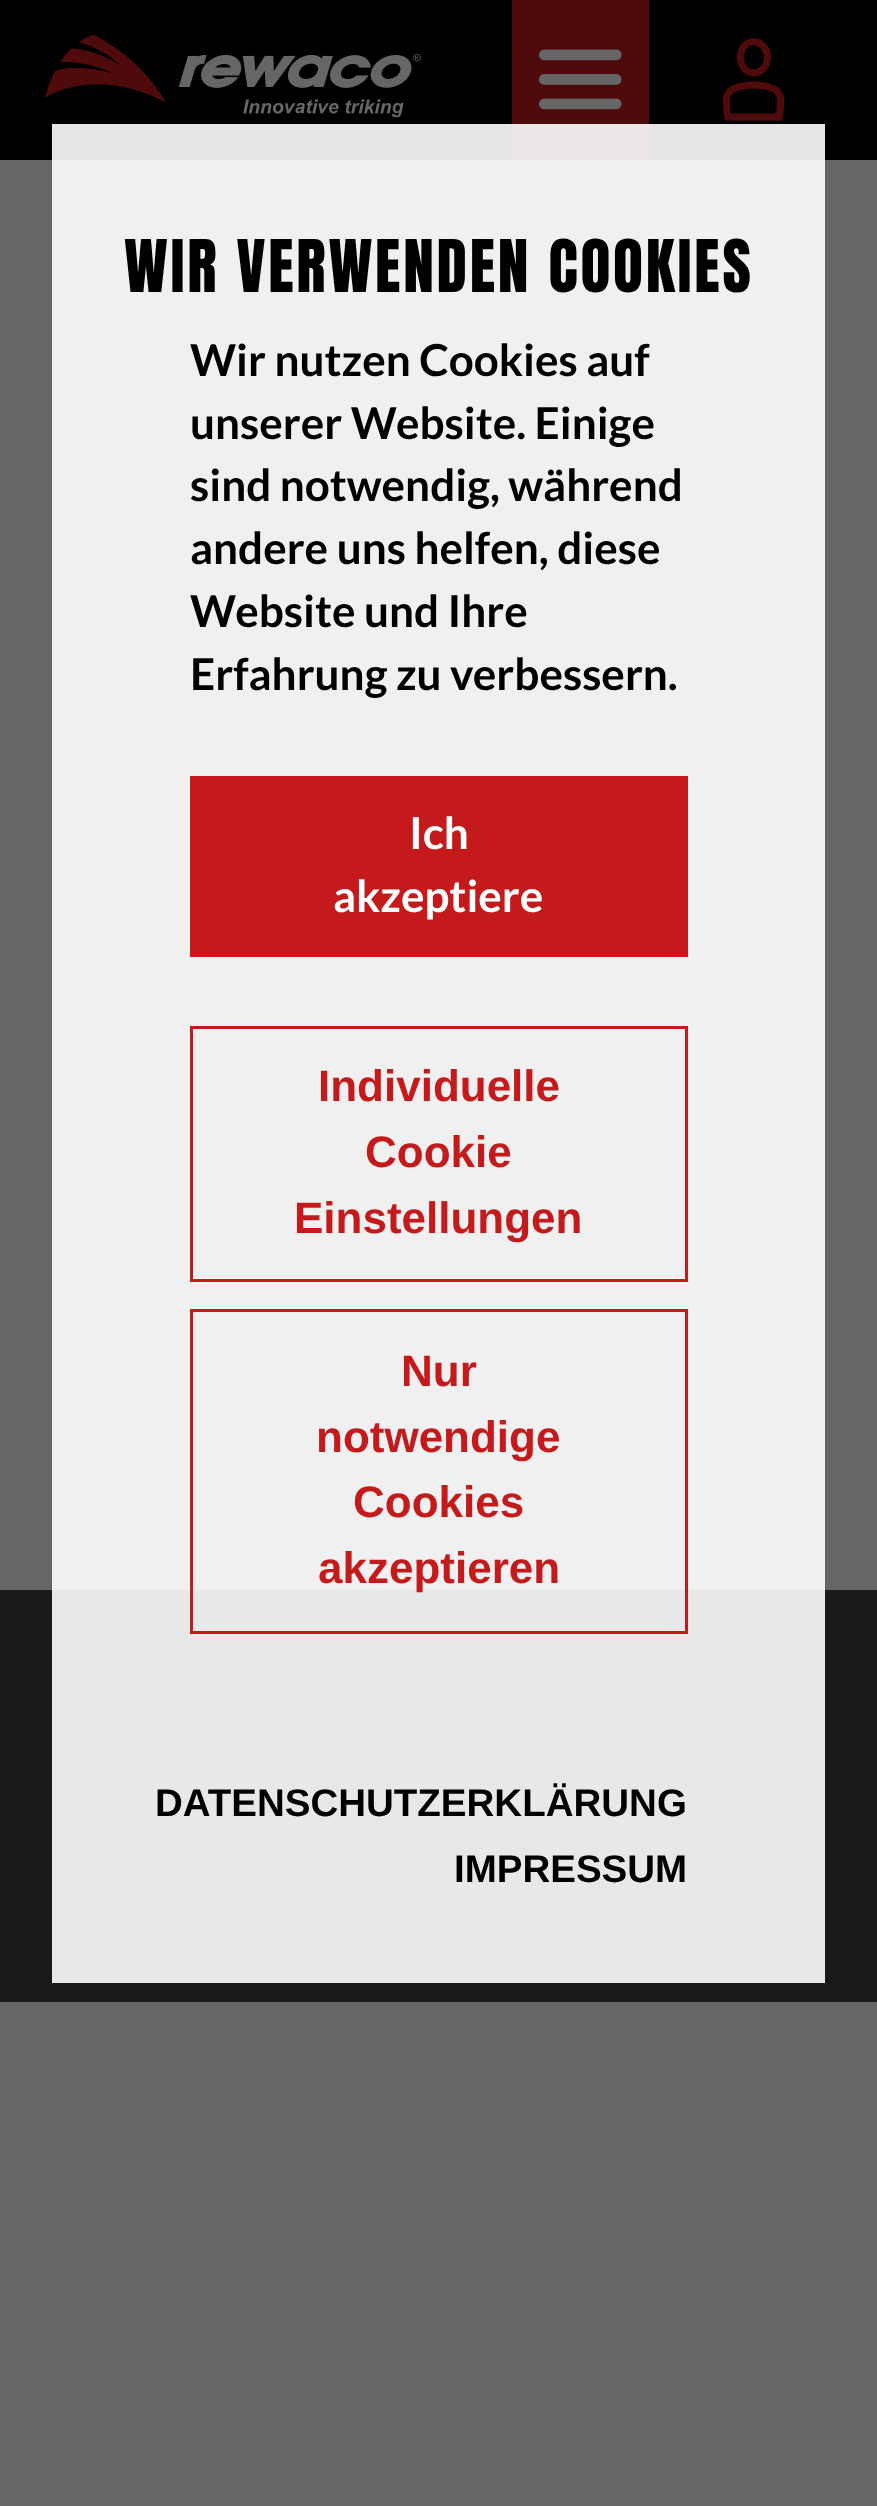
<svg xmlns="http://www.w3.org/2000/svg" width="877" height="2506">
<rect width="100%" height="100%" fill="#666"/>
<rect width="877" height="160" fill="#000"/>
<image x="45" y="34" width="376" height="84" href="media/1.png"/>
<rect x="512" width="137" height="160" fill="#4f0a0b"/>
<image x="539" y="49" width="83" height="61" href="media/2.png"/>
<image x="722" y="38" width="63" height="83" href="media/3.png"/>
<rect y="1590" width="877" height="412" fill="#191918"/>
<rect x="52" y="124" width="773" height="1859" fill="#ffffffe6"/>
<text x="124" y="292" style="font-family:Anton;font-size:61.6px;letter-spacing:2.75px;fill:#000">WIR VERWENDEN COOKIES</text>
<text x="190" y="376" style="font-family:Lato;font-size:44px;font-weight:bold;fill:#000">Wir nutzen Cookies auf</text>
<text x="190" y="439" style="font-family:Lato;font-size:44px;font-weight:bold;fill:#000">unserer Website. Einige</text>
<text x="190" y="501" style="font-family:Lato;font-size:44px;font-weight:bold;fill:#000">sind notwendig, während</text>
<text x="190" y="564" style="font-family:Lato;font-size:44px;font-weight:bold;fill:#000">andere uns helfen, diese</text>
<text x="190" y="627" style="font-family:Lato;font-size:44px;font-weight:bold;fill:#000">Website und Ihre</text>
<text x="190" y="690" style="font-family:Lato;font-size:44px;font-weight:bold;fill:#000">Erfahrung zu verbessern.</text>
<rect x="190" y="776" width="498" height="181" fill="#c51a1b"/>
<text x="409" y="849" style="font-family:Lato;font-size:44px;font-weight:bold;fill:#fff">Ich</text>
<text x="333" y="912" style="font-family:Lato;font-size:44px;font-weight:bold;fill:#fff">akzeptiere</text>
<rect x="191.5" y="1027.5" width="495" height="253" fill="none" stroke="#c51a1b" stroke-width="3"/>
<text x="318" y="1101" style="font-family:Liberation Sans;font-size:44px;font-weight:bold;fill:#c51a1b">Individuelle</text>
<text x="365" y="1167" style="font-family:Liberation Sans;font-size:44px;font-weight:bold;fill:#c51a1b">Cookie</text>
<text x="294" y="1233" style="font-family:Liberation Sans;font-size:44px;font-weight:bold;fill:#c51a1b">Einstellungen</text>
<rect x="191.5" y="1310.5" width="495" height="322" fill="none" stroke="#c51a1b" stroke-width="3"/>
<text x="401" y="1386" style="font-family:Liberation Sans;font-size:44px;font-weight:bold;fill:#c51a1b">Nur</text>
<text x="316" y="1452" style="font-family:Liberation Sans;font-size:44px;font-weight:bold;fill:#c51a1b">notwendige</text>
<text x="353" y="1517" style="font-family:Liberation Sans;font-size:44px;font-weight:bold;fill:#c51a1b">Cookies</text>
<text x="318" y="1583" style="font-family:Liberation Sans;font-size:44px;font-weight:bold;fill:#c51a1b">akzeptieren</text>
<text x="155" y="1816" style="font-family:Liberation Sans;font-size:38.5px;font-weight:bold;fill:#000">DATENSCHUTZERKLÄRUNG</text>
<text x="454" y="1882" style="font-family:Liberation Sans;font-size:38.5px;font-weight:bold;fill:#000">IMPRESSUM</text>
</svg>
